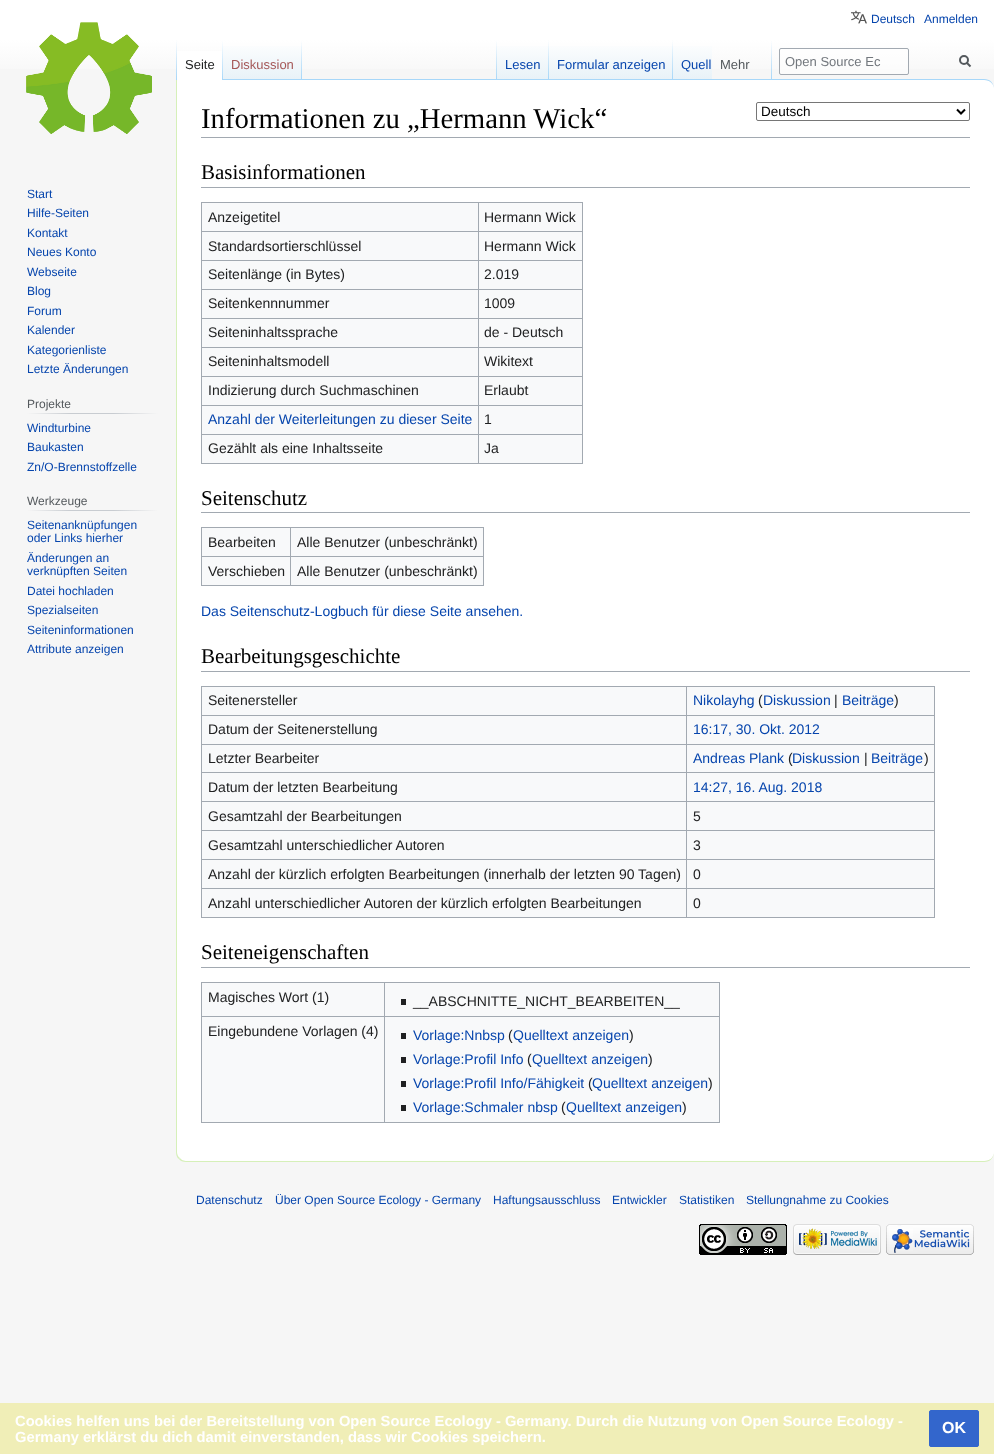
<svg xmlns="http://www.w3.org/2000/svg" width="994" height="1454">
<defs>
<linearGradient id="g1" gradientUnits="userSpaceOnUse" x1="497" y1="0" x2="497" y2="80"><stop offset="0.5" stop-color="#fff"/><stop offset="1" stop-color="#f6f6f6"/></linearGradient>
<linearGradient id="g2" gradientUnits="userSpaceOnUse" x1="177" y1="40" x2="177" y2="80"><stop offset="0" stop-color="#a7d7f9" stop-opacity="0"/><stop offset="1" stop-color="#a7d7f9"/></linearGradient>
<linearGradient id="g3" gradientUnits="userSpaceOnUse" x1="223" y1="40" x2="223" y2="80"><stop offset="0" stop-color="#fff"/><stop offset="1" stop-color="#a7d7f9"/></linearGradient>
<linearGradient id="g4" gradientUnits="userSpaceOnUse" x1="263" y1="80" x2="263" y2="40"><stop offset="0" stop-color="#77c1f6"/><stop offset="0.03" stop-color="#e8f2f8"/><stop offset="1" stop-color="#fff"/></linearGradient>
<linearGradient id="g5" gradientUnits="userSpaceOnUse" x1="302" y1="40" x2="302" y2="80"><stop offset="0" stop-color="#a7d7f9" stop-opacity="0"/><stop offset="1" stop-color="#a7d7f9"/></linearGradient>
<linearGradient id="g6" gradientUnits="userSpaceOnUse" x1="497" y1="40" x2="497" y2="80"><stop offset="0" stop-color="#a7d7f9" stop-opacity="0"/><stop offset="1" stop-color="#a7d7f9"/></linearGradient>
<linearGradient id="g7" gradientUnits="userSpaceOnUse" x1="523" y1="80" x2="523" y2="40"><stop offset="0" stop-color="#77c1f6"/><stop offset="0.03" stop-color="#e8f2f8"/><stop offset="1" stop-color="#fff"/></linearGradient>
<linearGradient id="g8" gradientUnits="userSpaceOnUse" x1="549" y1="40" x2="549" y2="80"><stop offset="0" stop-color="#a7d7f9" stop-opacity="0"/><stop offset="1" stop-color="#a7d7f9"/></linearGradient>
<linearGradient id="g9" gradientUnits="userSpaceOnUse" x1="611" y1="80" x2="611" y2="40"><stop offset="0" stop-color="#77c1f6"/><stop offset="0.03" stop-color="#e8f2f8"/><stop offset="1" stop-color="#fff"/></linearGradient>
<linearGradient id="g10" gradientUnits="userSpaceOnUse" x1="673" y1="40" x2="673" y2="80"><stop offset="0" stop-color="#a7d7f9" stop-opacity="0"/><stop offset="1" stop-color="#a7d7f9"/></linearGradient>
<linearGradient id="g11" gradientUnits="userSpaceOnUse" x1="693" y1="80" x2="693" y2="40"><stop offset="0" stop-color="#77c1f6"/><stop offset="0.03" stop-color="#e8f2f8"/><stop offset="1" stop-color="#fff"/></linearGradient>
<linearGradient id="g12" gradientUnits="userSpaceOnUse" x1="772" y1="40" x2="772" y2="80"><stop offset="0" stop-color="#a7d7f9" stop-opacity="0"/><stop offset="1" stop-color="#a7d7f9"/></linearGradient>
<linearGradient id="g13" gradientUnits="userSpaceOnUse" x1="27" y1="414" x2="158" y2="414"><stop offset="0" stop-color="#f6f6f6"/><stop offset="0.33" stop-color="#c8ccd1"/><stop offset="0.66" stop-color="#c8ccd1"/><stop offset="1" stop-color="#f6f6f6"/></linearGradient>
<linearGradient id="g14" gradientUnits="userSpaceOnUse" x1="27" y1="511" x2="158" y2="511"><stop offset="0" stop-color="#f6f6f6"/><stop offset="0.33" stop-color="#c8ccd1"/><stop offset="0.66" stop-color="#c8ccd1"/><stop offset="1" stop-color="#f6f6f6"/></linearGradient>
</defs>
<rect width="100%" height="100%" fill="#f6f6f6"/>
<rect width="994" height="69" fill="url(#g1)"/>
<image x="851" y="10" width="16" height="14" href="media/1.png"/>
<text x="871" y="23" style="font-family:Liberation Sans;font-size:12px;fill:#0645ad">Deutsch</text>
<text x="924" y="23" style="font-family:Liberation Sans;font-size:12px;fill:#0645ad">Anmelden</text>
<path d="M177 80h807c6 0 10 4 10 9v1063c0 5-4 9-10 9h-798c-5 0-9-4-9-9z" fill="#fff"/>
<path d="M176 79l1 1h807c6 0 10 4 10 9c0-6-4-10-10-10z" fill="#a7d7f9"/>
<path d="M186 1162h798c6 0 10-4 10-10c0 5-4 9-10 9h-798c-2 0-5-1-6-3l-1 1c1 2 4 3 7 3z" fill="#d6f0b9"/>
<path d="M177 80l-1-1v1073c0 3 1 6 3 7l1-1c-2-1-3-4-3-6z" fill="#d6f0b9"/>
<rect x="176" y="40" width="1" height="40" fill="url(#g2)"/>
<rect x="177" y="51" width="45" height="29" fill="#fff"/>
<rect x="222" y="40" width="1" height="40" fill="url(#g3)"/>
<text x="185" y="69" style="font-family:Liberation Sans;font-size:13px;fill:#202122">Seite</text>
<rect x="223" y="46" width="79" height="33" fill="url(#g4)"/>
<rect x="301" y="40" width="1" height="40" fill="url(#g5)"/>
<text x="231" y="69" style="font-family:Liberation Sans;font-size:13px;fill:#a55858">Diskussion</text>
<rect x="496" y="40" width="1" height="40" fill="url(#g6)"/>
<rect x="497" y="46" width="52" height="33" fill="url(#g7)"/>
<rect x="548" y="40" width="1" height="40" fill="url(#g8)"/>
<text x="505" y="69" style="font-family:Liberation Sans;font-size:13px;fill:#0645ad">Lesen</text>
<rect x="549" y="46" width="124" height="33" fill="url(#g9)"/>
<rect x="672" y="40" width="1" height="40" fill="url(#g10)"/>
<text x="557" y="69" style="font-family:Liberation Sans;font-size:13px;fill:#0645ad">Formular anzeigen</text>
<rect x="673" y="46" width="39" height="33" fill="url(#g11)"/>
<text x="681" y="69" style="font-family:Liberation Sans;font-size:13px;fill:#0645ad">Quell</text>
<rect x="771" y="40" width="1" height="40" fill="url(#g12)"/>
<text x="720" y="69" style="font-family:Liberation Sans;font-size:13px;fill:#54595d">Mehr</text>
<rect x="779.5" y="48.5" width="129" height="26" rx="1.5" fill="#ffffff80" stroke="#a2a9b1"/>
<text x="785" y="66" style="font-family:Liberation Sans;font-size:13px;fill:#72777d">Open Source Ec</text>
<path d="M970.5 66.5l-4-4" fill="none" stroke="#54595d" stroke-width="2"/>
<circle cx="964" cy="60" r="4" fill="none" stroke="#54595d" stroke-width="2"/>
<image x="26" y="22" width="126" height="112" href="media/2.png"/>
<text x="27" y="198" style="font-family:Liberation Sans;font-size:12px;fill:#0645ad">Start</text>
<text x="27" y="217" style="font-family:Liberation Sans;font-size:12px;fill:#0645ad">Hilfe-Seiten</text>
<text x="27" y="237" style="font-family:Liberation Sans;font-size:12px;fill:#0645ad">Kontakt</text>
<text x="27" y="256" style="font-family:Liberation Sans;font-size:12px;fill:#0645ad">Neues Konto</text>
<text x="27" y="276" style="font-family:Liberation Sans;font-size:12px;fill:#0645ad">Webseite</text>
<text x="27" y="295" style="font-family:Liberation Sans;font-size:12px;fill:#0645ad">Blog</text>
<text x="27" y="315" style="font-family:Liberation Sans;font-size:12px;fill:#0645ad">Forum</text>
<text x="27" y="334" style="font-family:Liberation Sans;font-size:12px;fill:#0645ad">Kalender</text>
<text x="27" y="354" style="font-family:Liberation Sans;font-size:12px;fill:#0645ad">Kategorienliste</text>
<text x="27" y="373" style="font-family:Liberation Sans;font-size:12px;fill:#0645ad">Letzte Änderungen</text>
<rect x="27" y="413" width="131" height="1" fill="url(#g13)"/>
<text x="27" y="408" style="font-family:Liberation Sans;font-size:12px;fill:#54595d">Projekte</text>
<text x="27" y="432" style="font-family:Liberation Sans;font-size:12px;fill:#0645ad">Windturbine</text>
<text x="27" y="451" style="font-family:Liberation Sans;font-size:12px;fill:#0645ad">Baukasten</text>
<text x="27" y="471" style="font-family:Liberation Sans;font-size:12px;fill:#0645ad">Zn/O-Brennstoffzelle</text>
<rect x="27" y="510" width="131" height="1" fill="url(#g14)"/>
<text x="27" y="505" style="font-family:Liberation Sans;font-size:12px;fill:#54595d">Werkzeuge</text>
<text x="27" y="529" style="font-family:Liberation Sans;font-size:12px;fill:#0645ad">Seitenanknüpfungen</text>
<text x="27" y="542" style="font-family:Liberation Sans;font-size:12px;fill:#0645ad">oder Links hierher</text>
<text x="27" y="562" style="font-family:Liberation Sans;font-size:12px;fill:#0645ad">Änderungen an</text>
<text x="27" y="575" style="font-family:Liberation Sans;font-size:12px;fill:#0645ad">verknüpften Seiten</text>
<text x="27" y="595" style="font-family:Liberation Sans;font-size:12px;fill:#0645ad">Datei hochladen</text>
<text x="27" y="614" style="font-family:Liberation Sans;font-size:12px;fill:#0645ad">Spezialseiten</text>
<text x="27" y="634" style="font-family:Liberation Sans;font-size:12px;fill:#0645ad">Seiteninformationen</text>
<text x="27" y="653" style="font-family:Liberation Sans;font-size:12px;fill:#0645ad">Attribute anzeigen</text>
<rect x="201" y="137" width="769" height="1" fill="#a2a9b1"/>
<text x="201" y="128" style="font-family:Liberation Serif;font-size:28.75px;fill:#000">Informationen zu „Hermann Wick“</text>
<rect x="756.5" y="102.5" width="213" height="18" rx="1.5" fill="none" stroke="#767676"/>
<path d="M957 109.5l4 4l4-4" fill="none" stroke="#000" stroke-width="2"/>
<text x="761" y="116" style="font-family:Liberation Sans;font-size:13.5px;fill:#000">Deutsch</text>
<rect x="201" y="187" width="769" height="1" fill="#a2a9b1"/>
<text x="201" y="179" style="font-family:Liberation Serif;font-size:21px;fill:#000">Basisinformationen</text>
<rect x="202" y="203" width="380" height="260" fill="#f8f9fa"/>
<rect x="201" y="202" width="382" height="1" fill="#a2a9b1"/>
<rect x="582" y="202" width="1" height="262" fill="#a2a9b1"/>
<rect x="201" y="463" width="382" height="1" fill="#a2a9b1"/>
<rect x="201" y="202" width="1" height="262" fill="#a2a9b1"/>
<text x="208" y="222" style="font-family:Liberation Sans;font-size:14px;fill:#202122">Anzeigetitel</text>
<rect x="478" y="231" width="105" height="1" fill="#a2a9b1"/>
<rect x="478" y="260" width="105" height="1" fill="#a2a9b1"/>
<rect x="478" y="289" width="105" height="1" fill="#a2a9b1"/>
<rect x="478" y="318" width="105" height="1" fill="#a2a9b1"/>
<rect x="478" y="347" width="105" height="1" fill="#a2a9b1"/>
<rect x="478" y="376" width="105" height="1" fill="#a2a9b1"/>
<rect x="478" y="405" width="105" height="1" fill="#a2a9b1"/>
<rect x="478" y="434" width="105" height="1" fill="#a2a9b1"/>
<rect x="478" y="434" width="1" height="30" fill="#a2a9b1"/>
<rect x="201" y="434" width="278" height="1" fill="#a2a9b1"/>
<rect x="478" y="405" width="1" height="30" fill="#a2a9b1"/>
<rect x="201" y="405" width="278" height="1" fill="#a2a9b1"/>
<rect x="478" y="376" width="1" height="30" fill="#a2a9b1"/>
<rect x="201" y="376" width="278" height="1" fill="#a2a9b1"/>
<rect x="478" y="347" width="1" height="30" fill="#a2a9b1"/>
<rect x="201" y="347" width="278" height="1" fill="#a2a9b1"/>
<rect x="478" y="318" width="1" height="30" fill="#a2a9b1"/>
<rect x="201" y="318" width="278" height="1" fill="#a2a9b1"/>
<rect x="478" y="289" width="1" height="30" fill="#a2a9b1"/>
<rect x="201" y="289" width="278" height="1" fill="#a2a9b1"/>
<rect x="478" y="260" width="1" height="30" fill="#a2a9b1"/>
<rect x="201" y="260" width="278" height="1" fill="#a2a9b1"/>
<rect x="478" y="231" width="1" height="30" fill="#a2a9b1"/>
<rect x="201" y="231" width="278" height="1" fill="#a2a9b1"/>
<rect x="478" y="202" width="1" height="30" fill="#a2a9b1"/>
<text x="484" y="222" style="font-family:Liberation Sans;font-size:14px;fill:#202122">Hermann Wick</text>
<text x="208" y="251" style="font-family:Liberation Sans;font-size:14px;fill:#202122">Standardsortierschlüssel</text>
<text x="484" y="251" style="font-family:Liberation Sans;font-size:14px;fill:#202122">Hermann Wick</text>
<text x="208" y="279" style="font-family:Liberation Sans;font-size:14px;fill:#202122">Seitenlänge (in Bytes)</text>
<text x="484" y="279" style="font-family:Liberation Sans;font-size:14px;fill:#202122">2.019</text>
<text x="208" y="308" style="font-family:Liberation Sans;font-size:14px;fill:#202122">Seitenkennnummer</text>
<text x="484" y="308" style="font-family:Liberation Sans;font-size:14px;fill:#202122">1009</text>
<text x="208" y="337" style="font-family:Liberation Sans;font-size:14px;fill:#202122">Seiteninhaltssprache</text>
<text x="484" y="337" style="font-family:Liberation Sans;font-size:14px;fill:#202122">de - Deutsch</text>
<text x="208" y="366" style="font-family:Liberation Sans;font-size:14px;fill:#202122">Seiteninhaltsmodell</text>
<text x="484" y="366" style="font-family:Liberation Sans;font-size:14px;fill:#202122">Wikitext</text>
<text x="208" y="395" style="font-family:Liberation Sans;font-size:14px;fill:#202122">Indizierung durch Suchmaschinen</text>
<text x="484" y="395" style="font-family:Liberation Sans;font-size:14px;fill:#202122">Erlaubt</text>
<text x="208" y="424" style="font-family:Liberation Sans;font-size:14px;fill:#0645ad">Anzahl der Weiterleitungen zu dieser Seite</text>
<text x="484" y="424" style="font-family:Liberation Sans;font-size:14px;fill:#202122">1</text>
<text x="208" y="453" style="font-family:Liberation Sans;font-size:14px;fill:#202122">Gezählt als eine Inhaltsseite</text>
<text x="484" y="453" style="font-family:Liberation Sans;font-size:14px;fill:#202122">Ja</text>
<rect x="201" y="512" width="769" height="1" fill="#a2a9b1"/>
<text x="201" y="505" style="font-family:Liberation Serif;font-size:21px;fill:#000">Seitenschutz</text>
<rect x="202" y="528" width="281" height="57" fill="#f8f9fa"/>
<rect x="201" y="527" width="283" height="1" fill="#a2a9b1"/>
<rect x="483" y="527" width="1" height="59" fill="#a2a9b1"/>
<rect x="201" y="585" width="283" height="1" fill="#a2a9b1"/>
<rect x="201" y="527" width="1" height="59" fill="#a2a9b1"/>
<text x="208" y="547" style="font-family:Liberation Sans;font-size:14px;fill:#202122">Bearbeiten</text>
<rect x="290" y="556" width="194" height="1" fill="#a2a9b1"/>
<rect x="290" y="556" width="1" height="30" fill="#a2a9b1"/>
<rect x="201" y="556" width="90" height="1" fill="#a2a9b1"/>
<rect x="290" y="527" width="1" height="30" fill="#a2a9b1"/>
<text x="297" y="547" style="font-family:Liberation Sans;font-size:14px;fill:#202122">Alle Benutzer (unbeschränkt)</text>
<text x="208" y="576" style="font-family:Liberation Sans;font-size:14px;fill:#202122">Verschieben</text>
<text x="297" y="576" style="font-family:Liberation Sans;font-size:14px;fill:#202122">Alle Benutzer (unbeschränkt)</text>
<text x="201" y="616" style="font-family:Liberation Sans;font-size:14px;fill:#0645ad">Das Seitenschutz-Logbuch für diese Seite ansehen.</text>
<rect x="201" y="671" width="769" height="1" fill="#a2a9b1"/>
<text x="201" y="663" style="font-family:Liberation Serif;font-size:21px;fill:#000">Bearbeitungsgeschichte</text>
<rect x="202" y="687" width="732" height="230" fill="#f8f9fa"/>
<rect x="201" y="686" width="734" height="1" fill="#a2a9b1"/>
<rect x="934" y="686" width="1" height="232" fill="#a2a9b1"/>
<rect x="201" y="917" width="734" height="1" fill="#a2a9b1"/>
<rect x="201" y="686" width="1" height="232" fill="#a2a9b1"/>
<text x="208" y="705" style="font-family:Liberation Sans;font-size:14px;fill:#202122">Seitenersteller</text>
<rect x="686" y="715" width="249" height="1" fill="#a2a9b1"/>
<rect x="686" y="744" width="249" height="1" fill="#a2a9b1"/>
<rect x="686" y="772" width="249" height="1" fill="#a2a9b1"/>
<rect x="686" y="801" width="249" height="1" fill="#a2a9b1"/>
<rect x="686" y="830" width="249" height="1" fill="#a2a9b1"/>
<rect x="686" y="859" width="249" height="1" fill="#a2a9b1"/>
<rect x="686" y="888" width="249" height="1" fill="#a2a9b1"/>
<rect x="686" y="888" width="1" height="30" fill="#a2a9b1"/>
<rect x="201" y="888" width="486" height="1" fill="#a2a9b1"/>
<rect x="686" y="859" width="1" height="30" fill="#a2a9b1"/>
<rect x="201" y="859" width="486" height="1" fill="#a2a9b1"/>
<rect x="686" y="830" width="1" height="30" fill="#a2a9b1"/>
<rect x="201" y="830" width="486" height="1" fill="#a2a9b1"/>
<rect x="686" y="801" width="1" height="30" fill="#a2a9b1"/>
<rect x="201" y="801" width="486" height="1" fill="#a2a9b1"/>
<rect x="686" y="772" width="1" height="30" fill="#a2a9b1"/>
<rect x="201" y="772" width="486" height="1" fill="#a2a9b1"/>
<rect x="686" y="744" width="1" height="29" fill="#a2a9b1"/>
<rect x="201" y="744" width="486" height="1" fill="#a2a9b1"/>
<rect x="686" y="715" width="1" height="30" fill="#a2a9b1"/>
<rect x="201" y="715" width="486" height="1" fill="#a2a9b1"/>
<rect x="686" y="686" width="1" height="30" fill="#a2a9b1"/>
<text x="693" y="705" style="font-family:Liberation Sans;font-size:14px;fill:#0645ad">Nikolayhg</text>
<text x="758" y="705" style="font-family:Liberation Sans;font-size:14px;fill:#202122">(</text>
<text x="763" y="705" style="font-family:Liberation Sans;font-size:14px;fill:#0645ad">Diskussion</text>
<text x="834" y="705" style="font-family:Liberation Sans;font-size:14px;fill:#202122">|</text>
<text x="842" y="705" style="font-family:Liberation Sans;font-size:14px;fill:#0645ad">Beiträge</text>
<text x="894" y="705" style="font-family:Liberation Sans;font-size:14px;fill:#202122">)</text>
<text x="208" y="734" style="font-family:Liberation Sans;font-size:14px;fill:#202122">Datum der Seitenerstellung</text>
<text x="693" y="734" style="font-family:Liberation Sans;font-size:14px;fill:#0645ad">16:17, 30. Okt. 2012</text>
<text x="208" y="763" style="font-family:Liberation Sans;font-size:14px;fill:#202122">Letzter Bearbeiter</text>
<text x="693" y="763" style="font-family:Liberation Sans;font-size:14px;fill:#0645ad">Andreas Plank</text>
<text x="788" y="763" style="font-family:Liberation Sans;font-size:14px;fill:#202122">(</text>
<text x="792" y="763" style="font-family:Liberation Sans;font-size:14px;fill:#0645ad">Diskussion</text>
<text x="864" y="763" style="font-family:Liberation Sans;font-size:14px;fill:#202122">|</text>
<text x="871" y="763" style="font-family:Liberation Sans;font-size:14px;fill:#0645ad">Beiträge</text>
<text x="924" y="763" style="font-family:Liberation Sans;font-size:14px;fill:#202122">)</text>
<text x="208" y="792" style="font-family:Liberation Sans;font-size:14px;fill:#202122">Datum der letzten Bearbeitung</text>
<text x="693" y="792" style="font-family:Liberation Sans;font-size:14px;fill:#0645ad">14:27, 16. Aug. 2018</text>
<text x="208" y="821" style="font-family:Liberation Sans;font-size:14px;fill:#202122">Gesamtzahl der Bearbeitungen</text>
<text x="693" y="821" style="font-family:Liberation Sans;font-size:14px;fill:#202122">5</text>
<text x="208" y="850" style="font-family:Liberation Sans;font-size:14px;fill:#202122">Gesamtzahl unterschiedlicher Autoren</text>
<text x="693" y="850" style="font-family:Liberation Sans;font-size:14px;fill:#202122">3</text>
<text x="208" y="879" style="font-family:Liberation Sans;font-size:14px;fill:#202122">Anzahl der kürzlich erfolgten Bearbeitungen (innerhalb der letzten 90 Tagen)</text>
<text x="693" y="879" style="font-family:Liberation Sans;font-size:14px;fill:#202122">0</text>
<text x="208" y="908" style="font-family:Liberation Sans;font-size:14px;fill:#202122">Anzahl unterschiedlicher Autoren der kürzlich erfolgten Bearbeitungen</text>
<text x="693" y="908" style="font-family:Liberation Sans;font-size:14px;fill:#202122">0</text>
<rect x="201" y="967" width="769" height="1" fill="#a2a9b1"/>
<text x="201" y="959" style="font-family:Liberation Serif;font-size:21px;fill:#000">Seiteneigenschaften</text>
<rect x="202" y="983" width="517" height="139" fill="#f8f9fa"/>
<rect x="201" y="982" width="519" height="1" fill="#a2a9b1"/>
<rect x="719" y="982" width="1" height="141" fill="#a2a9b1"/>
<rect x="201" y="1122" width="519" height="1" fill="#a2a9b1"/>
<rect x="201" y="982" width="1" height="141" fill="#a2a9b1"/>
<text x="208" y="1002" style="font-family:Liberation Sans;font-size:14px;fill:#202122">Magisches Wort (1)</text>
<rect x="384" y="1016" width="336" height="1" fill="#a2a9b1"/>
<rect x="384" y="1016" width="1" height="107" fill="#a2a9b1"/>
<rect x="201" y="1016" width="184" height="1" fill="#a2a9b1"/>
<rect x="384" y="982" width="1" height="35" fill="#a2a9b1"/>
<rect x="401" y="999" width="5" height="6" fill="#202122"/>
<text x="413" y="1006" style="font-family:Liberation Sans;font-size:14px;fill:#202122">__ABSCHNITTE_NICHT_BEARBEITEN__</text>
<text x="208" y="1036" style="font-family:Liberation Sans;font-size:14px;fill:#202122">Eingebundene Vorlagen (4)</text>
<rect x="401" y="1033" width="5" height="6" fill="#202122"/>
<text x="413" y="1040" style="font-family:Liberation Sans;font-size:14px;fill:#0645ad">Vorlage:Nnbsp</text>
<text x="508" y="1040" style="font-family:Liberation Sans;font-size:14px;fill:#202122">(</text>
<text x="513" y="1040" style="font-family:Liberation Sans;font-size:14px;fill:#0645ad">Quelltext anzeigen</text>
<text x="629" y="1040" style="font-family:Liberation Sans;font-size:14px;fill:#202122">)</text>
<rect x="401" y="1057" width="5" height="6" fill="#202122"/>
<text x="413" y="1064" style="font-family:Liberation Sans;font-size:14px;fill:#0645ad">Vorlage:Profil Info</text>
<text x="527" y="1064" style="font-family:Liberation Sans;font-size:14px;fill:#202122">(</text>
<text x="532" y="1064" style="font-family:Liberation Sans;font-size:14px;fill:#0645ad">Quelltext anzeigen</text>
<text x="648" y="1064" style="font-family:Liberation Sans;font-size:14px;fill:#202122">)</text>
<rect x="401" y="1081" width="5" height="6" fill="#202122"/>
<text x="413" y="1088" style="font-family:Liberation Sans;font-size:14px;fill:#0645ad">Vorlage:Profil Info/Fähigkeit</text>
<text x="588" y="1088" style="font-family:Liberation Sans;font-size:14px;fill:#202122">(</text>
<text x="592" y="1088" style="font-family:Liberation Sans;font-size:14px;fill:#0645ad">Quelltext anzeigen</text>
<text x="708" y="1088" style="font-family:Liberation Sans;font-size:14px;fill:#202122">)</text>
<rect x="401" y="1105" width="5" height="6" fill="#202122"/>
<text x="413" y="1112" style="font-family:Liberation Sans;font-size:14px;fill:#0645ad">Vorlage:Schmaler nbsp</text>
<text x="561" y="1112" style="font-family:Liberation Sans;font-size:14px;fill:#202122">(</text>
<text x="566" y="1112" style="font-family:Liberation Sans;font-size:14px;fill:#0645ad">Quelltext anzeigen</text>
<text x="682" y="1112" style="font-family:Liberation Sans;font-size:14px;fill:#202122">)</text>
<text x="196" y="1204" style="font-family:Liberation Sans;font-size:12px;fill:#0645ad">Datenschutz</text>
<text x="275" y="1204" style="font-family:Liberation Sans;font-size:12px;fill:#0645ad">Über Open Source Ecology - Germany</text>
<text x="493" y="1204" style="font-family:Liberation Sans;font-size:12px;fill:#0645ad">Haftungsausschluss</text>
<text x="612" y="1204" style="font-family:Liberation Sans;font-size:12px;fill:#0645ad">Entwickler</text>
<text x="679" y="1204" style="font-family:Liberation Sans;font-size:12px;fill:#0645ad">Statistiken</text>
<text x="746" y="1204" style="font-family:Liberation Sans;font-size:12px;fill:#0645ad">Stellungnahme zu Cookies</text>
<image x="699" y="1224" width="88" height="31" href="media/3.png"/>
<image x="793" y="1224" width="88" height="31" href="media/4.png"/>
<image x="886" y="1224" width="88" height="31" href="media/5.png"/>
<rect y="1403" width="994" height="51" fill="#f0eeb7"/>
<text x="15" y="1426" style="font-family:Liberation Sans;font-size:14.72px;font-weight:bold;fill:#fff">Cookies helfen uns bei der Bereitstellung von Open Source Ecology - Germany. Durch die Nutzung von Open Source Ecology -</text>
<text x="15" y="1442" style="font-family:Liberation Sans;font-size:14.72px;font-weight:bold;fill:#fff">Germany erklärst du dich damit einverstanden, dass wir Cookies speichern.</text>
<rect x="929.5" y="1410.5" width="49" height="36" rx="1.5" fill="#36c" stroke="#36c"/>
<text x="942" y="1433" style="font-family:Liberation Sans;font-size:16px;font-weight:bold;fill:#fff">OK</text>
</svg>
